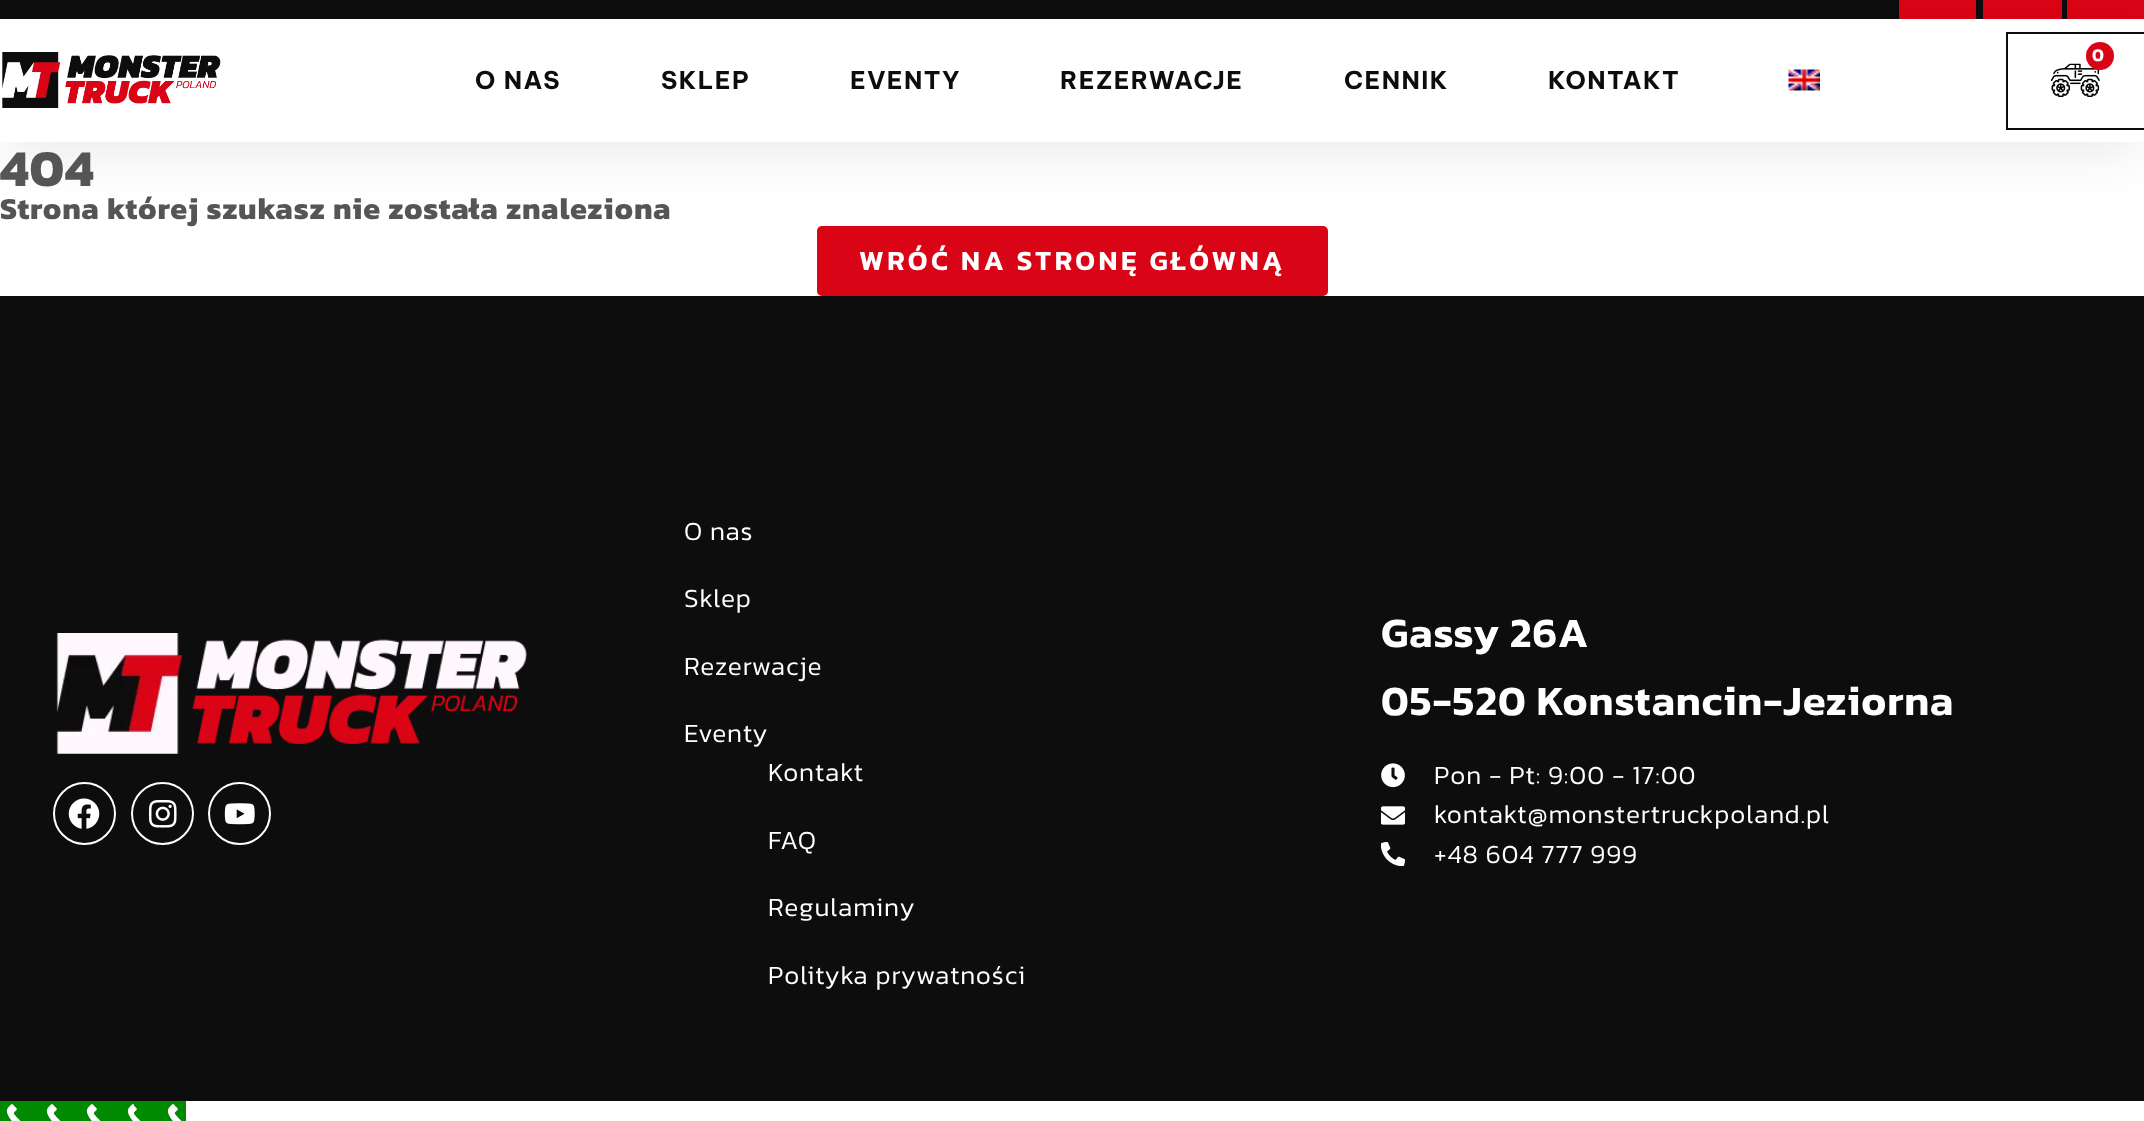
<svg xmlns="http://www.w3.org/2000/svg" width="2144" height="1121">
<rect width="100%" height="100%" fill="#fff"/>
<rect width="2067" height="19" fill="#0d0d0d"/>
<rect x="1899" width="77" height="19" fill="#d90416"/>
<rect x="1983" width="79" height="19" fill="#d90416"/>
<rect x="2067" width="77" height="19" fill="#d90416"/>
<rect x="817" y="226" width="511" height="70" rx="5" fill="#d90416"/>
<rect x="9" y="46" width="2128" height="105" fill="#2121211a" filter="blur(26px)"/>
<rect y="19" width="2144" height="123" fill="#fff"/>
<image x="2" y="52" width="219" height="56" href="media/1.png"/>
<rect x="2007" y="33" width="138" height="96" fill="none" stroke="#0d0d0d" stroke-width="2"/>
<image x="2050" y="63" width="50" height="34" href="media/2.png"/>
<circle cx="2100" cy="56" r="14" fill="#d90416"/>
<text x="2092" y="61" style="font-family:Kanit;font-size:18px;font-weight:600;letter-spacing:3.5px;fill:#fff">0</text>
<text x="475" y="89" style="font-family:Be Vietnam Pro;font-size:24.5px;font-weight:bold;letter-spacing:1.4px;fill:#0d0d0d">O NAS</text>
<text x="661" y="89" style="font-family:Be Vietnam Pro;font-size:24.5px;font-weight:bold;letter-spacing:1.4px;fill:#0d0d0d">SKLEP</text>
<text x="850" y="89" style="font-family:Be Vietnam Pro;font-size:24.5px;font-weight:bold;letter-spacing:1.4px;fill:#0d0d0d">EVENTY</text>
<text x="1060" y="89" style="font-family:Be Vietnam Pro;font-size:24.5px;font-weight:bold;letter-spacing:1.4px;fill:#0d0d0d">REZERWACJE</text>
<text x="1344" y="89" style="font-family:Be Vietnam Pro;font-size:24.5px;font-weight:bold;letter-spacing:1.4px;fill:#0d0d0d">CENNIK</text>
<text x="1548" y="89" style="font-family:Be Vietnam Pro;font-size:24.5px;font-weight:bold;letter-spacing:1.4px;fill:#0d0d0d">KONTAKT</text>
<image x="1788" y="69" width="32" height="22" href="media/3.png"/>
<text x="0" y="186" style="font-family:Kanit;font-size:52px;font-weight:bold;letter-spacing:0.9px;fill:#555">404</text>
<text x="0" y="219" style="font-family:Kanit;font-size:30.75px;font-weight:bold;letter-spacing:0.9px;fill:#555">Strona której szukasz nie została znaleziona</text>
<text x="859" y="270" style="font-family:Kanit;font-size:28px;font-weight:600;letter-spacing:3.5px;fill:#fff">WRÓĆ NA STRONĘ GŁÓWNĄ</text>
<rect y="296" width="2144" height="805" fill="#0d0d0d"/>
<image x="56" y="633" width="471" height="121" href="media/4.png"/>
<circle cx="84.5" cy="813.5" r="30.5" fill="none" stroke="#fff" stroke-width="2"/>
<image x="68" y="798" width="32" height="31" href="media/5.png"/>
<circle cx="162.5" cy="813.5" r="30.5" fill="none" stroke="#fff" stroke-width="2"/>
<image x="148" y="799" width="29" height="29" href="media/6.png"/>
<circle cx="239.5" cy="813.5" r="30.5" fill="none" stroke="#fff" stroke-width="2"/>
<image x="224" y="803" width="31" height="22" href="media/7.png"/>
<text x="684" y="540" style="font-family:Kanit;font-size:26.25px;font-weight:300;letter-spacing:0.9px;fill:#fff">O nas</text>
<text x="684" y="607" style="font-family:Kanit;font-size:26.25px;font-weight:300;letter-spacing:0.9px;fill:#fff">Sklep</text>
<text x="684" y="675" style="font-family:Kanit;font-size:26.25px;font-weight:300;letter-spacing:0.9px;fill:#fff">Rezerwacje</text>
<text x="684" y="742" style="font-family:Kanit;font-size:26.25px;font-weight:300;letter-spacing:0.9px;fill:#fff">Eventy</text>
<text x="768" y="781" style="font-family:Kanit;font-size:26.25px;font-weight:300;letter-spacing:0.9px;fill:#fff">Kontakt</text>
<text x="768" y="849" style="font-family:Kanit;font-size:26.25px;font-weight:300;letter-spacing:0.9px;fill:#fff">FAQ</text>
<text x="768" y="916" style="font-family:Kanit;font-size:26.25px;font-weight:300;letter-spacing:0.9px;fill:#fff">Regulaminy</text>
<text x="768" y="984" style="font-family:Kanit;font-size:26.25px;font-weight:300;letter-spacing:0.9px;fill:#fff">Polityka prywatności</text>
<text x="1381" y="647" style="font-family:Kanit;font-size:42px;font-weight:600;letter-spacing:0.9px;fill:#fff">Gassy 26A</text>
<text x="1381" y="715" style="font-family:Kanit;font-size:42px;font-weight:600;letter-spacing:0.9px;fill:#fff">05-520 Konstancin-Jeziorna</text>
<image x="1381" y="763" width="24" height="25" href="media/8.png"/>
<text x="1434" y="784" style="font-family:Kanit;font-size:26.25px;font-weight:300;letter-spacing:0.9px;fill:#fff">Pon - Pt: 9:00 - 17:00</text>
<image x="1381" y="806" width="24" height="19" href="media/9.png"/>
<text x="1434" y="823" style="font-family:Kanit;font-size:26.25px;font-weight:300;letter-spacing:0.9px;fill:#fff">kontakt@monstertruckpoland.pl</text>
<image x="1381" y="842" width="24" height="24" href="media/10.png"/>
<text x="1434" y="863" style="font-family:Kanit;font-size:26.25px;font-weight:300;letter-spacing:0.9px;fill:#fff">+48 604 777 999</text>
<rect y="1101" width="186" height="20" fill="#008a00"/>
<image x="6" y="1104" width="176" height="17" href="media/11.png"/>
</svg>
